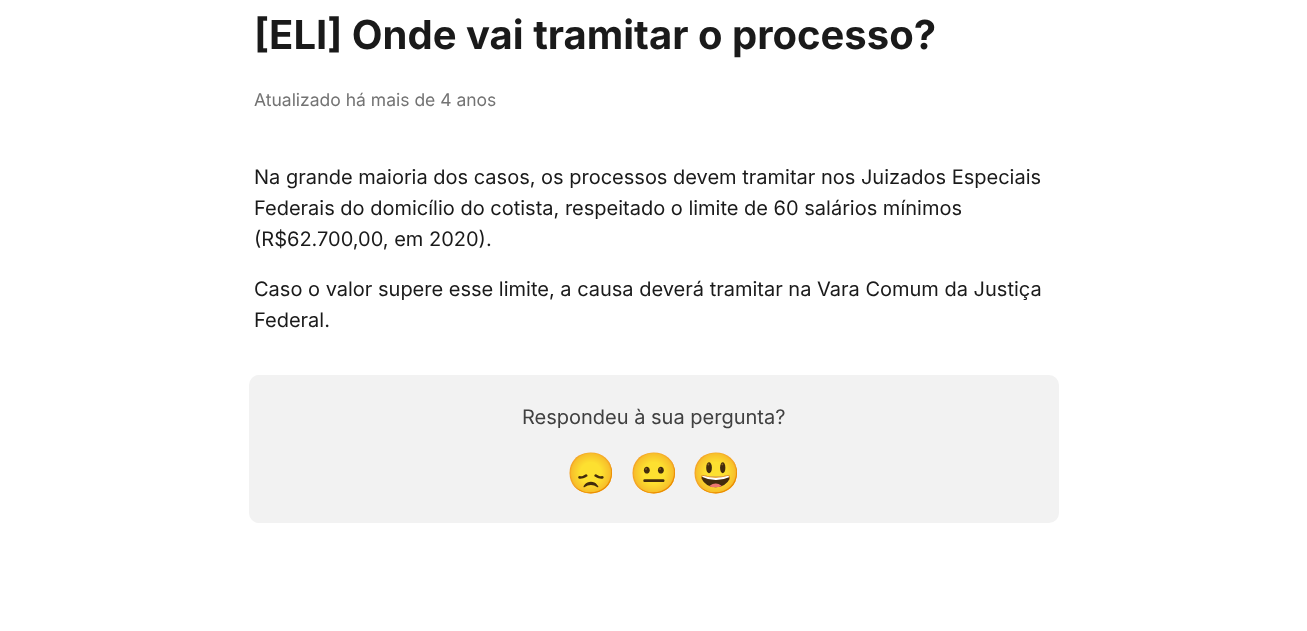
<svg xmlns="http://www.w3.org/2000/svg" width="1307" height="631">
<rect width="100%" height="100%" fill="#fff"/>
<text x="254" y="49" style="font-family:Inter;font-size:40px;font-weight:bold;fill:#1a1a1a">[ELI] Onde vai tramitar o processo?</text>
<text x="254" y="106" style="font-family:Inter;font-size:17.5px;fill:#737373">Atualizado há mais de 4 anos</text>
<text x="254" y="184" style="font-family:Inter;font-size:20px;fill:#1a1a1a">Na grande maioria dos casos, os processos devem tramitar nos Juizados Especiais</text>
<text x="254" y="215" style="font-family:Inter;font-size:20px;fill:#1a1a1a">Federais do domicílio do cotista, respeitado o limite de 60 salários mínimos</text>
<text x="254" y="246" style="font-family:Inter;font-size:20px;fill:#1a1a1a">(R$62.700,00, em 2020).</text>
<text x="254" y="296" style="font-family:Inter;font-size:20px;fill:#1a1a1a">Caso o valor supere esse limite, a causa deverá tramitar na Vara Comum da Justiça</text>
<text x="254" y="327" style="font-family:Inter;font-size:20px;fill:#1a1a1a">Federal.</text>
<rect x="249" y="375" width="810" height="148" rx="10" fill="#f2f2f2"/>
<text x="522" y="424" style="font-family:Inter;font-size:20px;fill:#404040">Respondeu à sua pergunta?</text>
<text x="566" y="487" style="font-family:Noto Color Emoji;font-size:40px;fill:#404040">😞</text>
<text x="629" y="487" style="font-family:Noto Color Emoji;font-size:40px;fill:#404040">😐</text>
<text x="691" y="487" style="font-family:Noto Color Emoji;font-size:40px;fill:#404040">😃</text>
</svg>
